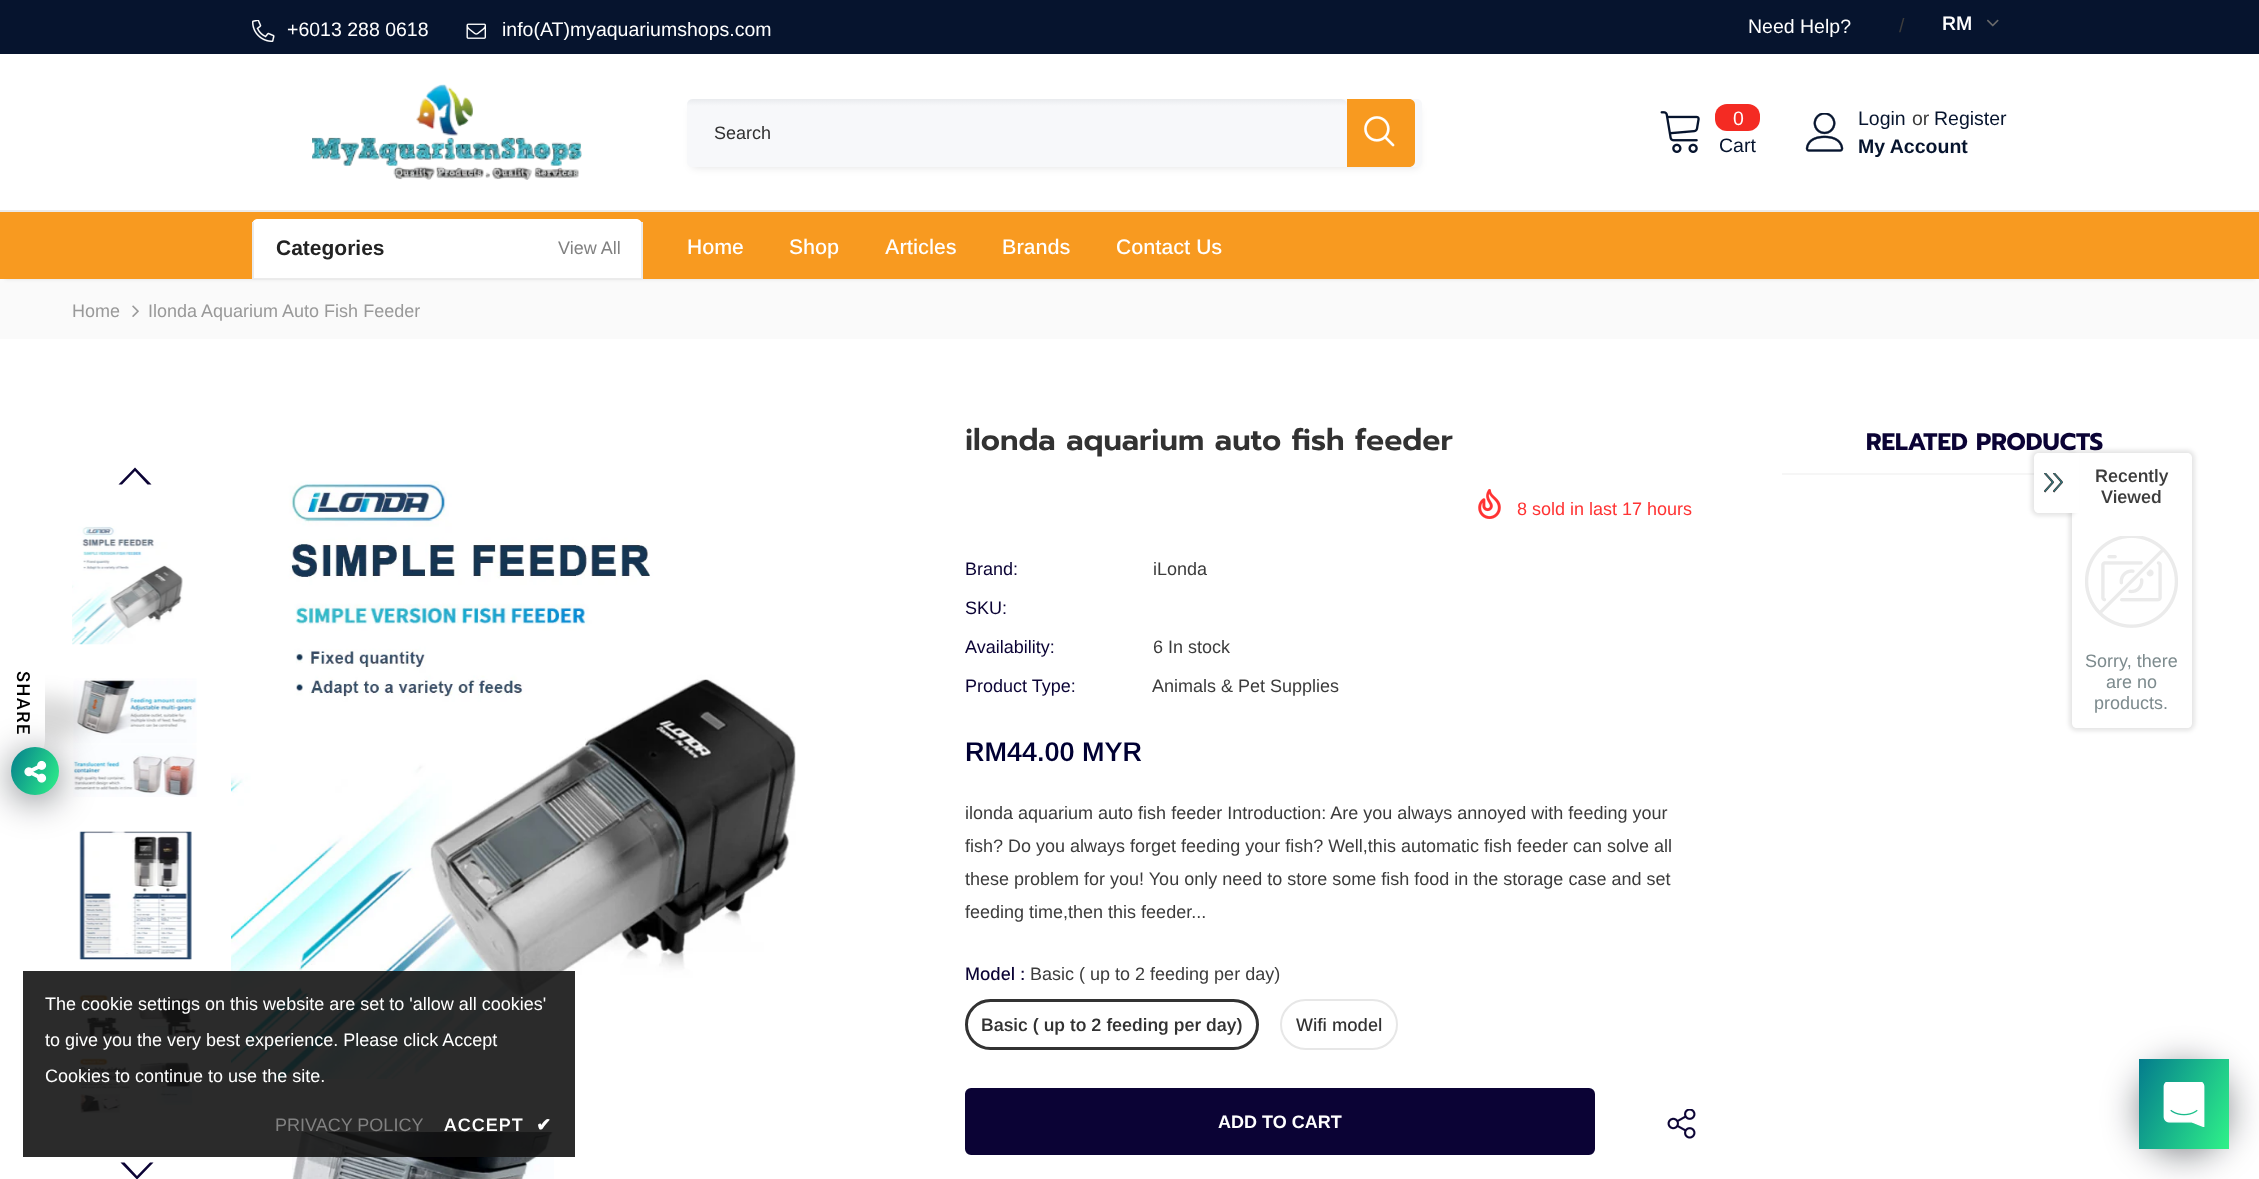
<svg xmlns="http://www.w3.org/2000/svg" width="2259" height="1179">
<defs>
<linearGradient id="g1" gradientUnits="userSpaceOnUse" x1="1017" y1="99" x2="1017" y2="167"><stop offset="0" stop-color="#e9ebee"/><stop offset="0.1" stop-color="#f7f8fa"/><stop offset="1" stop-color="#f7f8fa"/></linearGradient>
<linearGradient id="g2" gradientUnits="userSpaceOnUse" x1="5.6" y1="758" x2="63" y2="784"><stop offset="0" stop-color="#047c8d"/><stop offset="1" stop-color="#2ff289"/></linearGradient>
<linearGradient id="g3" gradientUnits="userSpaceOnUse" x1="2130" y1="1079" x2="2238" y2="1129"><stop offset="0" stop-color="#047c8d"/><stop offset="1" stop-color="#2ff289"/></linearGradient>
</defs>
<rect width="100%" height="100%" fill="#fff"/>
<rect width="2259" height="54" fill="#06142e"/>
<image x="252" y="20" width="23" height="22" href="media/1.png"/>
<text x="287" y="36" style="font-family:Arimo;font-size:19.5px;fill:#fff">+6013 288 0618</text>
<image x="466" y="23" width="20" height="16" href="media/2.png"/>
<text x="502" y="36" style="font-family:Arimo;font-size:19.5px;fill:#fff">info(AT)myaquariumshops.com</text>
<text x="1748" y="33" style="font-family:Arimo;font-size:19.5px;fill:#fff">Need Help?</text>
<text x="1899" y="32" style="font-family:Arimo;font-size:19.5px;fill:#3c3c3c">/</text>
<text x="1942" y="30" style="font-family:Arimo;font-size:19.5px;font-weight:600;fill:#fff">RM</text>
<image x="1987" y="19" width="12" height="8" href="media/3.png"/>
<rect y="210" width="2259" height="2" fill="#ebebeb"/>
<image x="312" y="84" width="270" height="96" href="media/4.png"/>
<rect x="692" y="108" width="726" height="59" fill="#0000001f" filter="blur(4px)"/>
<rect x="687" y="99" width="735" height="68" rx="5" fill="#f7f8fa"/>
<rect x="687" y="99" width="660" height="68" rx="6" fill="url(#g1)"/>
<text x="714" y="139" style="font-family:Arimo;font-size:18px;fill:#323232">Search</text>
<path d="M1347 99h62c3.5 0 6 2.5 6 6v56c0 3.5-2.5 6-6 6h-62z" fill="#f89a20"/>
<image x="1364" y="116" width="31" height="31" href="media/5.png"/>
<image x="1660" y="111" width="40" height="42" href="media/6.png"/>
<rect x="1715" y="104" width="45" height="27" rx="12" fill="#f42b23"/>
<text x="1733" y="125" style="font-family:Arimo;font-size:19.5px;fill:#fff">0</text>
<text x="1719" y="152" style="font-family:Arimo;font-size:19.5px;fill:#06142e">Cart</text>
<image x="1805" y="113" width="39" height="39" href="media/7.png"/>
<text x="1858" y="125" style="font-family:Arimo;font-size:19.5px;fill:#06142e">Login</text>
<text x="1912" y="125" style="font-family:Arimo;font-size:19.5px;fill:#3c3c3c">or</text>
<text x="1934" y="125" style="font-family:Arimo;font-size:19.5px;fill:#06142e">Register</text>
<text x="1858" y="153" style="font-family:Arimo;font-size:19.5px;font-weight:bold;fill:#06142e">My Account</text>
<rect y="279" width="2259" height="60" fill="#fafafa"/>
<rect x="5" y="221" width="2250" height="58" fill="#0000001a" filter="blur(2px)"/>
<rect y="212" width="2259" height="67" fill="#f89a20"/>
<path d="M258 219h378c3.5 0 6 2.5 6 6v54h-390v-54c0-3.5 2.5-6 6-6z" fill="#fff"/>
<rect x="641" y="222" width="2" height="57" fill="#ebebeb"/>
<rect x="252" y="278" width="390" height="2" fill="#ebebeb"/>
<rect x="252" y="222" width="2" height="57" fill="#ebebeb"/>
<text x="276" y="255" style="font-family:Arimo;font-size:21px;font-weight:bold;fill:#232323">Categories</text>
<text x="558" y="254" style="font-family:Arimo;font-size:18px;fill:#818181">View All</text>
<text x="687" y="254" style="font-family:Arimo;font-size:21px;font-weight:500;fill:#fff">Home</text>
<text x="789" y="254" style="font-family:Arimo;font-size:21px;font-weight:500;fill:#fff">Shop</text>
<text x="885" y="254" style="font-family:Arimo;font-size:21px;font-weight:500;fill:#fff">Articles</text>
<text x="1002" y="254" style="font-family:Arimo;font-size:21px;font-weight:500;fill:#fff">Brands</text>
<text x="1116" y="254" style="font-family:Arimo;font-size:21px;font-weight:500;fill:#fff">Contact Us</text>
<image x="73" y="678" width="124" height="119" href="media/14.png"/>
<rect x="-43" y="696" width="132" height="45" rx="42" fill="#00000026" filter="blur(10.5px)"/>
<path d="M0 780v-132h39c3 0 6 3 6 6v84c0 24-19 42-42 42z" fill="#fff"/>
<text x="17" y="671" transform="rotate(90 17 671)" style="font-family:Roboto;font-size:18px;font-weight:500;letter-spacing:1.5px;fill:#000">SHARE</text>
<image x="79" y="831" width="113" height="129" href="media/15.png"/>
<rect x="11" y="753" width="48" height="48" rx="24" fill="#02061080" filter="blur(18px)"/>
<circle cx="35" cy="771" r="24" fill="url(#g2)"/>
<image x="24" y="760" width="23" height="23" href="media/8.png"/>
<rect x="2139" y="1065" width="90" height="90" rx="45" fill="#02061080" filter="blur(18px)"/>
<rect x="2139" y="1059" width="90" height="90" fill="url(#g3)"/>
<image x="2163" y="1082" width="42" height="45" href="media/9.png"/>
<text x="72" y="317" style="font-family:Arimo;font-size:18px;fill:#999">Home</text>
<image x="132" y="305" width="7" height="12" href="media/10.png"/>
<text x="148" y="317" style="font-family:Arimo;font-size:18px;fill:#999">Ilonda Aquarium Auto Fish Feeder</text>
<text x="965" y="450" style="font-family:Prompt;font-size:30px;font-weight:600;fill:#323232">ilonda aquarium auto fish feeder</text>
<image x="1478" y="489" width="23" height="30" href="media/11.png"/>
<text x="1517" y="515" style="font-family:Arimo;font-size:18px;fill:#f33">8 sold in last 17 hours</text>
<text x="965" y="575" style="font-family:Arimo;font-size:18px;fill:#0b0335">Brand:</text>
<text x="1153" y="575" style="font-family:Arimo;font-size:18px;fill:#3c3c3c">iLonda</text>
<text x="965" y="614" style="font-family:Arimo;font-size:18px;fill:#0b0335">SKU:</text>
<text x="965" y="653" style="font-family:Arimo;font-size:18px;fill:#0b0335">Availability:</text>
<text x="1153" y="653" style="font-family:Arimo;font-size:18px;fill:#3c3c3c">6 In stock</text>
<text x="965" y="692" style="font-family:Arimo;font-size:18px;fill:#0b0335">Product Type:</text>
<text x="1152" y="692" style="font-family:Arimo;font-size:18px;fill:#3c3c3c">Animals &amp; Pet Supplies</text>
<text x="965" y="761" style="font-family:Arimo;font-size:27px;font-weight:600;fill:#003">RM44.00 MYR</text>
<text x="965" y="819" style="font-family:Arimo;font-size:18px;fill:#3c3c3c">ilonda aquarium auto fish feeder Introduction: Are you always annoyed with feeding your</text>
<text x="965" y="852" style="font-family:Arimo;font-size:18px;fill:#3c3c3c">fish? Do you always forget feeding your fish? Well,this automatic fish feeder can solve all</text>
<text x="965" y="885" style="font-family:Arimo;font-size:18px;fill:#3c3c3c">these problem for you! You only need to store some fish food in the storage case and set</text>
<text x="965" y="918" style="font-family:Arimo;font-size:18px;fill:#3c3c3c">feeding time,then this feeder...</text>
<text x="965" y="980" style="font-family:Arimo;font-size:18px;font-weight:500;fill:#0b0335">Model :</text>
<text x="1030" y="980" style="font-family:Arimo;font-size:18px;fill:#3c3c3c">Basic ( up to 2 feeding per day)</text>
<rect x="966" y="1000" width="292" height="49" rx="24.5" fill="none" stroke="#e7e7e7" stroke-width="2"/>
<rect x="966.5" y="1000.5" width="291" height="48" rx="24" fill="none" stroke="#323232" stroke-width="3"/>
<text x="981" y="1031" style="font-family:Arimo;font-size:18px;font-weight:600;fill:#323232">Basic ( up to 2 feeding per day)</text>
<rect x="1281" y="1000" width="116" height="49" rx="24.5" fill="none" stroke="#e7e7e7" stroke-width="2"/>
<text x="1296" y="1031" style="font-family:Arimo;font-size:18px;font-weight:500;fill:#323232">Wifi model</text>
<rect x="966" y="1089" width="628" height="65" rx="5" fill="#0b0335" stroke="#0b0335" stroke-width="2"/>
<text x="1218" y="1128" style="font-family:Arimo;font-size:18px;font-weight:bold;fill:#fff">ADD TO CART</text>
<image x="1667" y="1109" width="29" height="30" href="media/12.png"/>
<rect x="1782" y="473" width="252" height="2" fill="#f6f6f6"/>
<text x="1866" y="450" style="font-family:Prompt;font-size:24px;font-weight:bold;fill:#0b0335">RELATED PRODUCTS</text>
<path d="M135 467.5l-16.5 17h3.5l13-13.5l12.5 13.5h4z" fill="#0b0335"/>
<image x="72" y="526" width="111" height="119" href="media/13.png"/>
<image x="77" y="993" width="119" height="120" href="media/16.png"/>
<path d="M139 1177.5l-2 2l-16.5-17h4l12.5 13.5l13-13.5h3.5z" fill="#0b0335"/>
<image x="231" y="481" width="565" height="598" href="media/17.png"/>
<image x="292" y="1131" width="262" height="48" href="media/18.png"/>
<rect x="23" y="971" width="552" height="186" fill="#141414e6"/>
<text x="45" y="1010" style="font-family:Arimo;font-size:18px;fill:#fff">The cookie settings on this website are set to 'allow all cookies'</text>
<text x="45" y="1046" style="font-family:Arimo;font-size:18px;fill:#fff">to give you the very best experience. Please click Accept</text>
<text x="45" y="1082" style="font-family:Arimo;font-size:18px;fill:#fff">Cookies to continue to use the site.</text>
<text x="275" y="1131" style="font-family:Arimo;font-size:18px;fill:#818181">PRIVACY POLICY</text>
<text x="444" y="1131" style="font-family:Arimo;font-size:18px;font-weight:600;letter-spacing:1px;fill:#fff">ACCEPT</text>
<text x="536" y="1131" style="font-family:DejaVu Sans;font-size:18px;font-weight:bold;letter-spacing:1px;fill:#fff">✔</text>
<rect x="2069" y="450" width="126" height="281" rx="8" fill="#0000001a" filter="blur(2px)"/>
<path d="M2072 453h115c3 0 5 2 5 5v265c0 3-2 5-5 5h-110c-3 0-5-2-5-5z" fill="#fff"/>
<rect x="2031" y="450" width="45" height="66" rx="8" fill="#0000001a" filter="blur(2px)"/>
<path d="M2039 453h34v60h-34c-3 0-5-2-5-5v-50c0-3 2-5 5-5z" fill="#fff"/>
<image x="2044" y="473" width="19" height="20" href="media/19.png"/>
<rect x="2073" y="453" width="6" height="60" fill="#fff"/>
<text x="2095" y="482" style="font-family:Arimo;font-size:18px;font-weight:600;fill:#3c3c3c">Recently</text>
<text x="2101" y="503" style="font-family:Arimo;font-size:18px;font-weight:600;fill:#3c3c3c">Viewed</text>
<image x="2085" y="536" width="93" height="92" href="media/20.png"/>
<text x="2085" y="667" style="font-family:Arimo;font-size:18px;fill:#7d8b8e">Sorry, there</text>
<text x="2106" y="688" style="font-family:Arimo;font-size:18px;fill:#7d8b8e">are no</text>
<text x="2094" y="709" style="font-family:Arimo;font-size:18px;fill:#7d8b8e">products.</text>
</svg>
